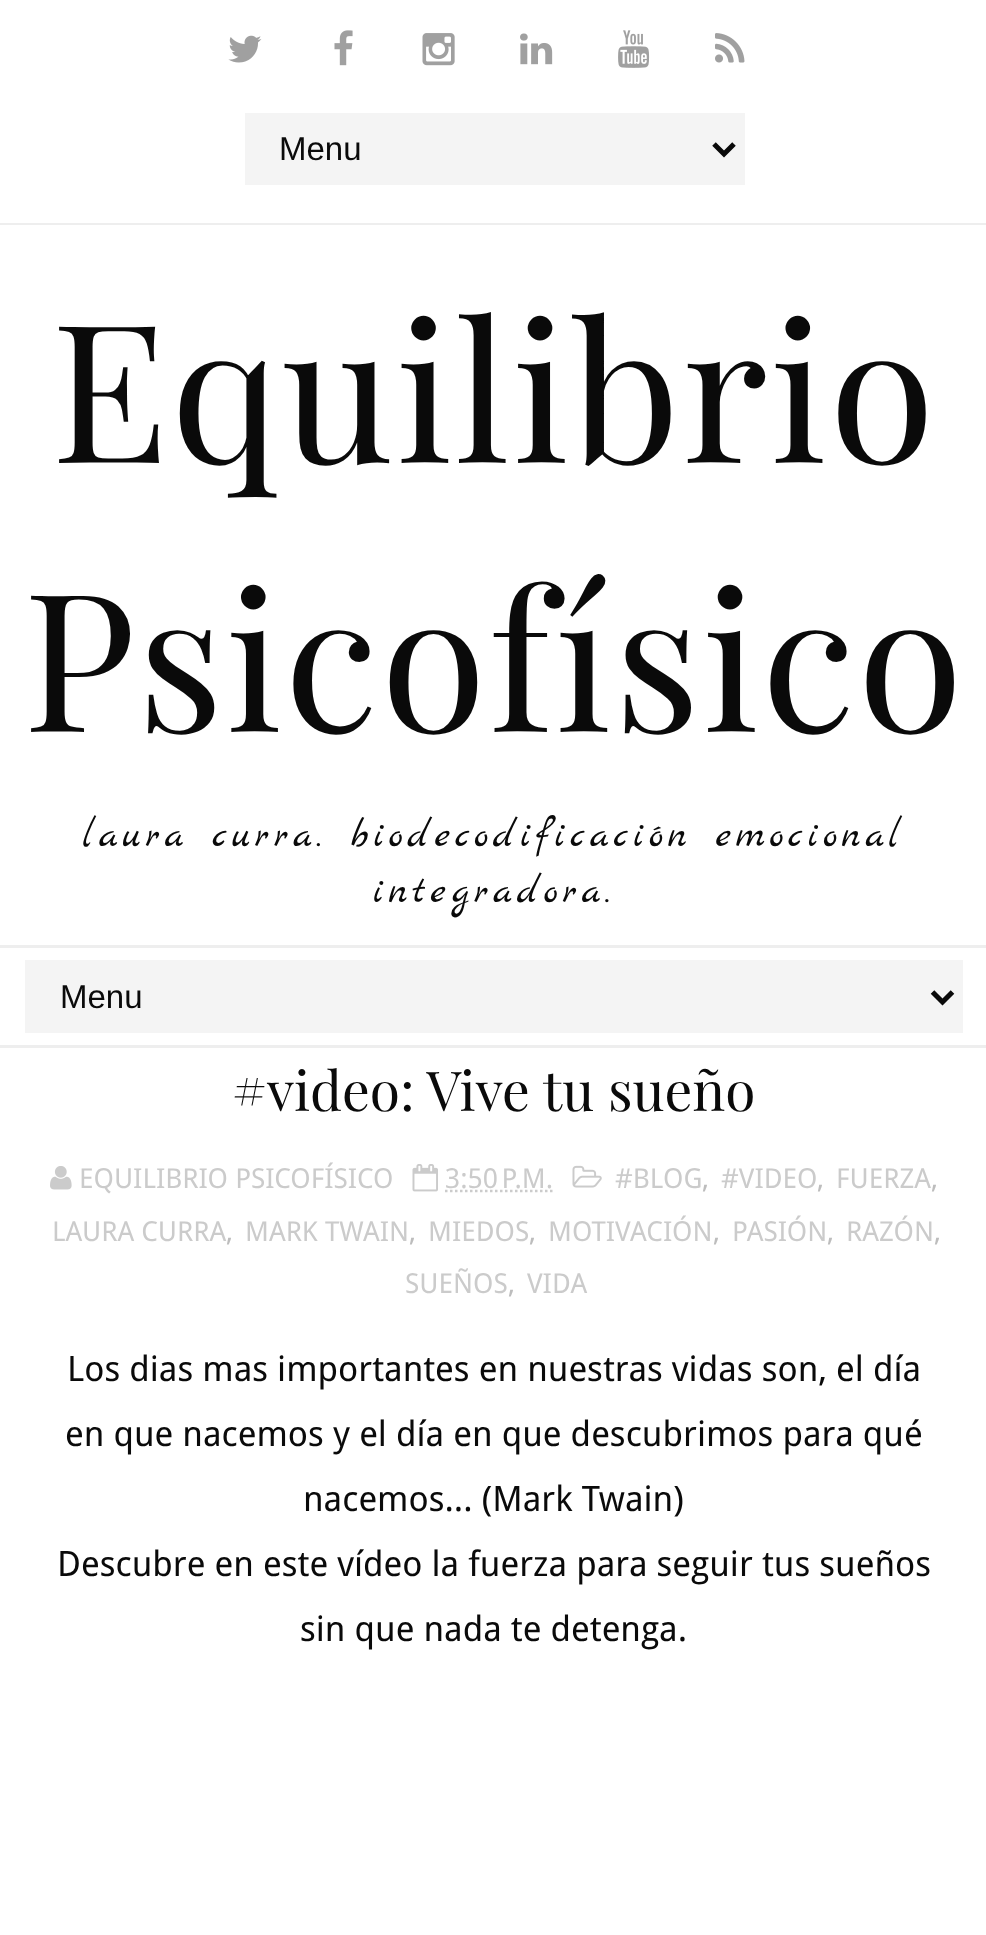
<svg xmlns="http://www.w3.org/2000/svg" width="986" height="1935">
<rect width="100%" height="100%" fill="#fff"/>
<rect y="223" width="986" height="2" fill="#eee"/>
<image x="228" y="35" width="34" height="28" href="media/1.png"/>
<image x="334" y="30" width="19" height="36" href="media/2.png"/>
<image x="422" y="33" width="33" height="33" href="media/3.png"/>
<image x="520" y="33" width="33" height="32" href="media/4.png"/>
<image x="618" y="30" width="32" height="38" href="media/5.png"/>
<image x="715" y="33" width="30" height="30" href="media/6.png"/>
<rect x="245" y="113" width="500" height="72" fill="#f4f4f4"/>
<path d="M714 144l10 10l10-10" fill="none" stroke="#0a0a0a" stroke-width="5"/>
<text x="279" y="160" style="font-family:Liberation Sans;font-size:33px;fill:#0a0a0a">Menu</text>
<text x="51" y="463" style="font-family:Playfair Display;font-size:192.5px;letter-spacing:2.5px;fill:#0a0a0a">Equilibrio</text>
<text x="23" y="732" style="font-family:Playfair Display;font-size:192.5px;letter-spacing:2.5px;fill:#0a0a0a">Psicofísico</text>
<text x="83" y="846" style="font-family:Marck Script;font-size:40px;letter-spacing:5px;fill:#0a0a0a">laura curra. biodecodificación emocional</text>
<text x="373" y="902" style="font-family:Marck Script;font-size:40px;letter-spacing:5px;fill:#0a0a0a">integradora.</text>
<rect y="945" width="986" height="3" fill="#eee"/>
<rect y="1045" width="986" height="3" fill="#eee"/>
<rect x="25" y="960" width="938" height="73" fill="#f4f4f4"/>
<path d="M932.5 992l10 10l10-10" fill="none" stroke="#0a0a0a" stroke-width="5"/>
<text x="60" y="1008" style="font-family:Liberation Sans;font-size:33px;fill:#0a0a0a">Menu</text>
<text x="232" y="1111" style="font-family:Playfair Display;font-size:55px;fill:#0a0a0a">#video: Vive tu sueño</text>
<image x="50" y="1166" width="22" height="24" href="media/7.png"/>
<text x="79" y="1188" style="font-family:Droid Sans;font-size:27.5px;fill:#cbcbcb">EQUILIBRIO PSICOFÍSICO</text>
<image x="572" y="1165" width="30" height="23" href="media/8.png"/>
<text x="615" y="1188" style="font-family:Droid Sans;font-size:27.5px;fill:#cbcbcb">#BLOG</text>
<text x="702" y="1188" style="font-family:Droid Sans;font-size:27.5px;fill:#bdbdbd">,</text>
<text x="721" y="1188" style="font-family:Droid Sans;font-size:27.5px;fill:#cbcbcb">#VIDEO</text>
<text x="817" y="1188" style="font-family:Droid Sans;font-size:27.5px;fill:#bdbdbd">,</text>
<text x="836" y="1188" style="font-family:Droid Sans;font-size:27.5px;fill:#cbcbcb">FUERZA</text>
<text x="931" y="1188" style="font-family:Droid Sans;font-size:27.5px;fill:#bdbdbd">,</text>
<text x="52" y="1241" style="font-family:Droid Sans;font-size:27.5px;fill:#cbcbcb">LAURA CURRA</text>
<text x="226" y="1241" style="font-family:Droid Sans;font-size:27.5px;fill:#bdbdbd">,</text>
<text x="245" y="1241" style="font-family:Droid Sans;font-size:27.5px;fill:#cbcbcb">MARK TWAIN</text>
<text x="409" y="1241" style="font-family:Droid Sans;font-size:27.5px;fill:#bdbdbd">,</text>
<text x="428" y="1241" style="font-family:Droid Sans;font-size:27.5px;fill:#cbcbcb">MIEDOS</text>
<text x="529" y="1241" style="font-family:Droid Sans;font-size:27.5px;fill:#bdbdbd">,</text>
<text x="548" y="1241" style="font-family:Droid Sans;font-size:27.5px;fill:#cbcbcb">MOTIVACIÓN</text>
<text x="713" y="1241" style="font-family:Droid Sans;font-size:27.5px;fill:#bdbdbd">,</text>
<text x="732" y="1241" style="font-family:Droid Sans;font-size:27.5px;fill:#cbcbcb">PASIÓN</text>
<text x="827" y="1241" style="font-family:Droid Sans;font-size:27.5px;fill:#bdbdbd">,</text>
<text x="846" y="1241" style="font-family:Droid Sans;font-size:27.5px;fill:#cbcbcb">RAZÓN</text>
<text x="934" y="1241" style="font-family:Droid Sans;font-size:27.5px;fill:#bdbdbd">,</text>
<text x="405" y="1293" style="font-family:Droid Sans;font-size:27.5px;fill:#cbcbcb">SUEÑOS</text>
<text x="508" y="1293" style="font-family:Droid Sans;font-size:27.5px;fill:#bdbdbd">,</text>
<text x="527" y="1293" style="font-family:Droid Sans;font-size:27.5px;fill:#cbcbcb">VIDA</text>
<image x="412" y="1164" width="26" height="28" href="media/9.png"/>
<text x="445" y="1188" style="font-family:Droid Sans;font-size:27.5px;fill:#cbcbcb">3:50 P.M.</text>
<path d="M445 1191h108.5" fill="none" stroke="#cbcbcb" stroke-width="2.5" stroke-dasharray="2.5 2.5"/>
<text x="67" y="1381" style="font-family:Droid Sans;font-size:35px;fill:#0a0a0a">Los dias mas importantes en nuestras vidas son, el día</text>
<text x="65" y="1446" style="font-family:Droid Sans;font-size:35px;fill:#0a0a0a">en que nacemos y el día en que descubrimos para qué</text>
<text x="303" y="1511" style="font-family:Droid Sans;font-size:35px;fill:#0a0a0a">nacemos... (Mark Twain)</text>
<text x="57" y="1576" style="font-family:Droid Sans;font-size:35px;fill:#0a0a0a">Descubre en este vídeo la fuerza para seguir tus sueños</text>
<text x="300" y="1641" style="font-family:Droid Sans;font-size:35px;fill:#0a0a0a">sin que nada te detenga.</text>
</svg>
